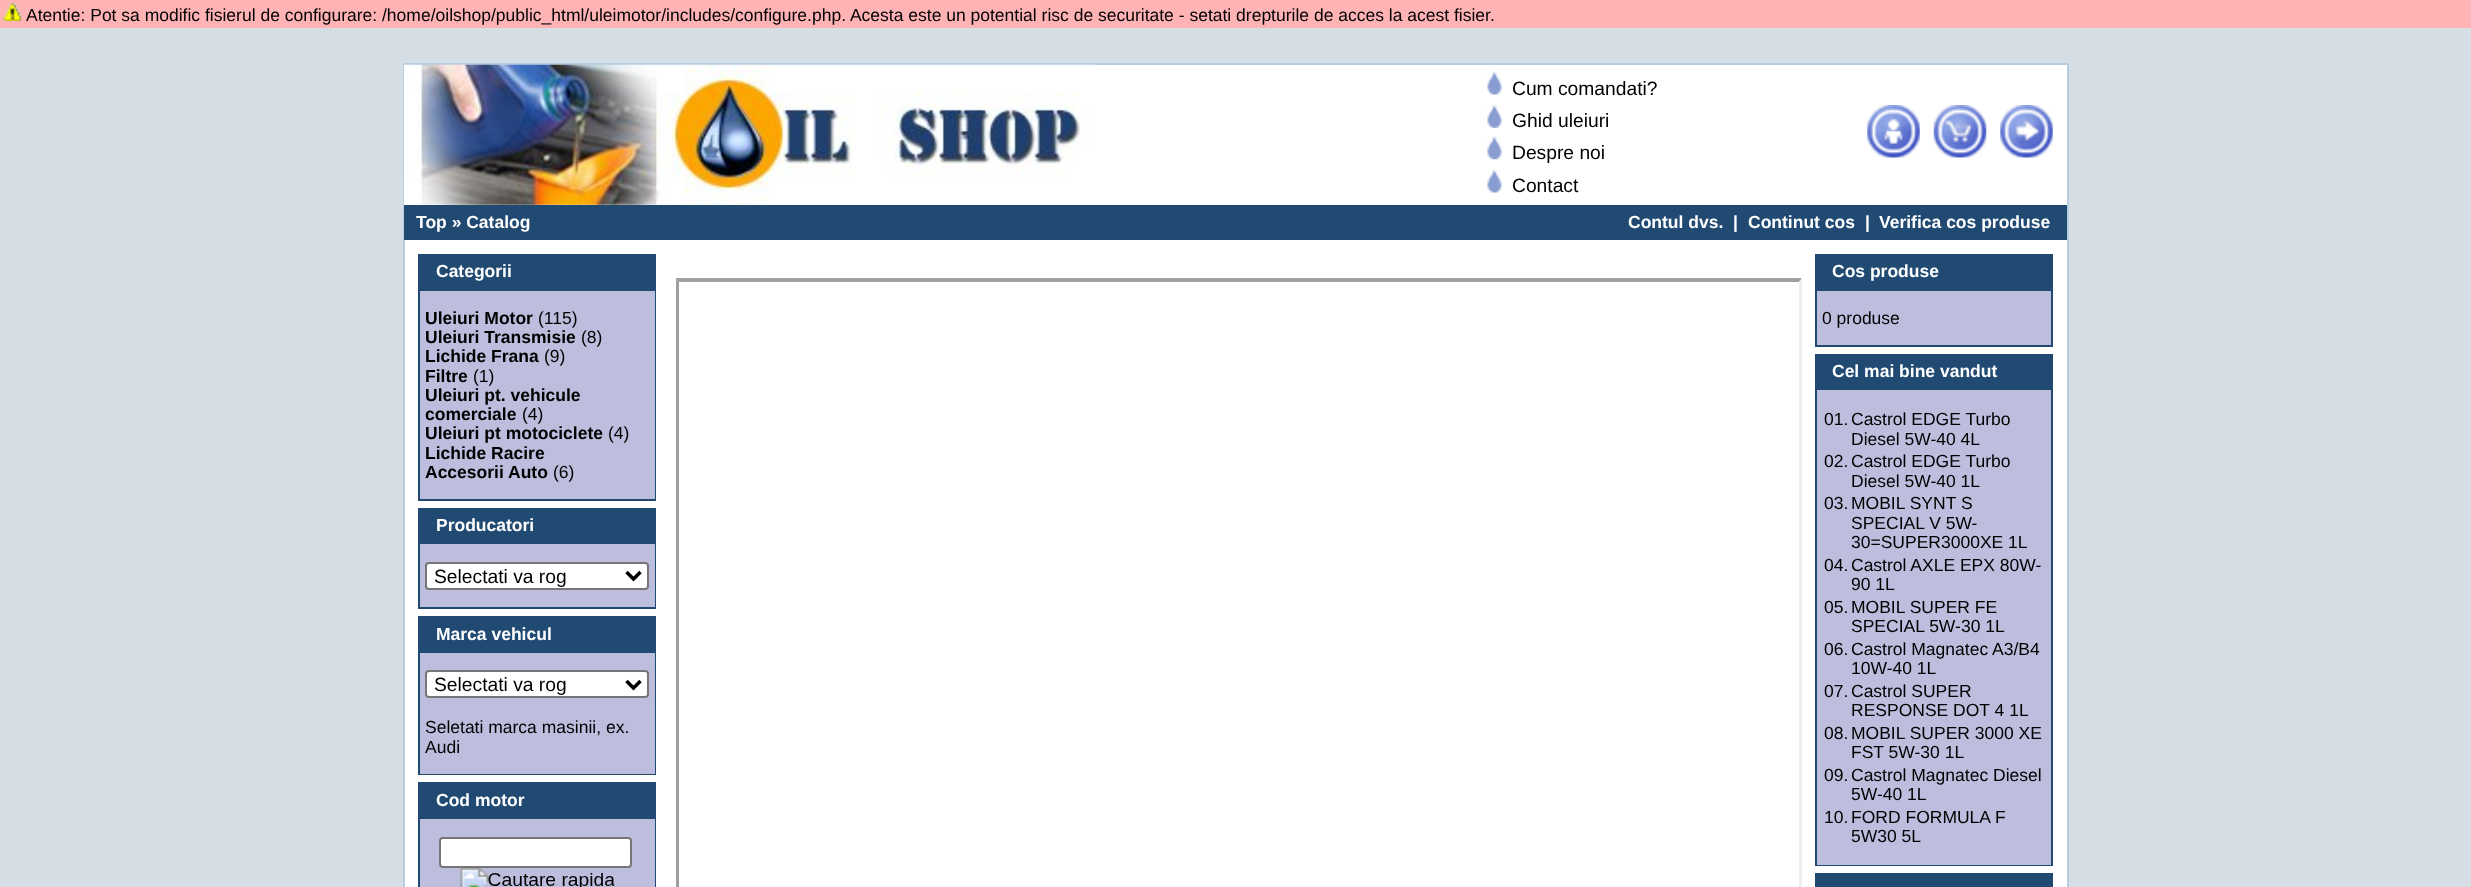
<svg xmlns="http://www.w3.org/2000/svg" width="2471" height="887">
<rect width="100%" height="100%" fill="#d6dee5"/>
<rect width="2471" height="28" fill="#ffb3b5"/>
<image x="3" y="3" width="18" height="18" href="media/1.png"/>
<text x="26" y="21" style="font-family:Liberation Sans;font-size:17.5px;fill:#000">Atentie: Pot sa modific fisierul de configurare: /home/oilshop/public_html/uleimotor/includes/configure.php. Acesta este un potential risc de securitate - setati drepturile de acces la acest fisier.</text>
<rect x="405" y="240" width="1662" height="647" fill="#fff"/>
<rect x="404" y="64" width="1664" height="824" fill="none" stroke="#b8cde0" stroke-width="2"/>
<rect x="404" y="65" width="1663" height="140" fill="#fff"/>
<image x="404" y="64" width="692" height="141" href="media/2.png"/>
<image x="1487" y="71" width="15" height="24" href="media/3.png"/>
<text x="1512" y="95" style="font-family:Liberation Sans;font-size:19.25px;fill:#000">Cum comandati?</text>
<image x="1487" y="104" width="15" height="24" href="media/4.png"/>
<text x="1512" y="127" style="font-family:Liberation Sans;font-size:19.25px;fill:#000">Ghid uleiuri</text>
<image x="1487" y="136" width="15" height="24" href="media/5.png"/>
<text x="1512" y="159" style="font-family:Liberation Sans;font-size:19.25px;fill:#000">Despre noi</text>
<image x="1487" y="169" width="15" height="24" href="media/3.png"/>
<text x="1512" y="192" style="font-family:Liberation Sans;font-size:19.25px;fill:#000">Contact</text>
<image x="1867" y="105" width="53" height="53" href="media/6.png"/>
<image x="1933" y="105" width="54" height="53" href="media/7.png"/>
<image x="2000" y="105" width="53" height="53" href="media/8.png"/>
<rect x="404" y="205" width="1663" height="35" fill="#214a73"/>
<text x="416" y="228" style="font-family:Liberation Sans;font-size:17.5px;font-weight:bold;fill:#fff">Top » Catalog</text>
<text x="1628" y="228" style="font-family:Liberation Sans;font-size:17.5px;font-weight:bold;fill:#fff">Contul dvs.</text>
<text x="1733" y="228" style="font-family:Liberation Sans;font-size:17.5px;font-weight:bold;fill:#fff">|</text>
<text x="1748" y="228" style="font-family:Liberation Sans;font-size:17.5px;font-weight:bold;fill:#fff">Continut cos</text>
<text x="1865" y="228" style="font-family:Liberation Sans;font-size:17.5px;font-weight:bold;fill:#fff">|</text>
<text x="1879" y="228" style="font-family:Liberation Sans;font-size:17.5px;font-weight:bold;fill:#fff">Verifica cos produse</text>
<rect x="418" y="254" width="238" height="247" fill="#214a73"/>
<text x="436" y="277" style="font-family:Liberation Sans;font-size:17.5px;font-weight:bold;fill:#fff">Categorii</text>
<rect x="420" y="291" width="235" height="208" fill="#bdbdde"/>
<text x="425" y="324" style="font-family:Liberation Sans;font-size:17.5px;font-weight:bold;fill:#000">Uleiuri Motor</text>
<text x="538" y="324" style="font-family:Liberation Sans;font-size:17.5px;fill:#000">(115)</text>
<text x="425" y="343" style="font-family:Liberation Sans;font-size:17.5px;font-weight:bold;fill:#000">Uleiuri Transmisie</text>
<text x="581" y="343" style="font-family:Liberation Sans;font-size:17.5px;fill:#000">(8)</text>
<text x="425" y="362" style="font-family:Liberation Sans;font-size:17.5px;font-weight:bold;fill:#000">Lichide Frana</text>
<text x="544" y="362" style="font-family:Liberation Sans;font-size:17.5px;fill:#000">(9)</text>
<text x="425" y="382" style="font-family:Liberation Sans;font-size:17.5px;font-weight:bold;fill:#000">Filtre</text>
<text x="473" y="382" style="font-family:Liberation Sans;font-size:17.5px;fill:#000">(1)</text>
<text x="425" y="401" style="font-family:Liberation Sans;font-size:17.5px;font-weight:bold;fill:#000">Uleiuri pt. vehicule</text>
<text x="425" y="420" style="font-family:Liberation Sans;font-size:17.5px;font-weight:bold;fill:#000">comerciale</text>
<text x="522" y="420" style="font-family:Liberation Sans;font-size:17.5px;fill:#000">(4)</text>
<text x="425" y="439" style="font-family:Liberation Sans;font-size:17.5px;font-weight:bold;fill:#000">Uleiuri pt motociclete</text>
<text x="608" y="439" style="font-family:Liberation Sans;font-size:17.5px;fill:#000">(4)</text>
<text x="425" y="459" style="font-family:Liberation Sans;font-size:17.5px;font-weight:bold;fill:#000">Lichide Racire</text>
<text x="425" y="478" style="font-family:Liberation Sans;font-size:17.5px;font-weight:bold;fill:#000">Accesorii Auto</text>
<text x="553" y="478" style="font-family:Liberation Sans;font-size:17.5px;fill:#000">(6)</text>
<rect x="418" y="508" width="238" height="101" fill="#214a73"/>
<text x="436" y="531" style="font-family:Liberation Sans;font-size:17.5px;font-weight:bold;fill:#fff">Producatori</text>
<rect x="420" y="544" width="235" height="63" fill="#bdbdde"/>
<rect x="426" y="563" width="222" height="26" rx="3" fill="#fff" stroke="#767676" stroke-width="2"/>
<path d="M626.5 572l7 7l7-7" fill="none" stroke="#000" stroke-width="3.5"/>
<text x="434" y="583" style="font-family:Liberation Sans;font-size:19.25px;fill:#000">Selectati va rog</text>
<rect x="418" y="616" width="238" height="159" fill="#214a73"/>
<text x="436" y="640" style="font-family:Liberation Sans;font-size:17.5px;font-weight:bold;fill:#fff">Marca vehicul</text>
<rect x="420" y="653" width="235" height="121" fill="#bdbdde"/>
<rect x="426" y="671" width="222" height="26" rx="3" fill="#fff" stroke="#767676" stroke-width="2"/>
<path d="M626.5 681l7 7l7-7" fill="none" stroke="#000" stroke-width="3.5"/>
<text x="434" y="691" style="font-family:Liberation Sans;font-size:19.25px;fill:#000">Selectati va rog</text>
<text x="425" y="733" style="font-family:Liberation Sans;font-size:17.5px;fill:#000">Seletati marca masinii, ex.</text>
<text x="425" y="753" style="font-family:Liberation Sans;font-size:17.5px;fill:#000">Audi</text>
<rect x="418" y="782" width="238" height="105" fill="#214a73"/>
<text x="436" y="806" style="font-family:Liberation Sans;font-size:17.5px;font-weight:bold;fill:#fff">Cod motor</text>
<rect x="420" y="819" width="235" height="68" fill="#bdbdde"/>
<rect x="440" y="838" width="191" height="29" rx="3" fill="#fff" stroke="#767676" stroke-width="2"/>
<image x="460" y="868" width="155" height="19" href="media/9.png"/>
<path d="M676 278h1126l-3 4h-1120z" fill="#9f9f9f"/>
<path d="M676 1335v-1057l3 4v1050z" fill="#9f9f9f"/>
<path d="M1802 278v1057l-3-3v-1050z" fill="#eee"/>
<rect x="1815" y="254" width="238" height="93" fill="#214a73"/>
<text x="1832" y="277" style="font-family:Liberation Sans;font-size:17.5px;font-weight:bold;fill:#fff">Cos produse</text>
<rect x="1817" y="291" width="234" height="54" fill="#bdbdde"/>
<text x="1822" y="324" style="font-family:Liberation Sans;font-size:17.5px;fill:#000">0 produse</text>
<rect x="1815" y="354" width="238" height="512" fill="#214a73"/>
<text x="1832" y="377" style="font-family:Liberation Sans;font-size:17.5px;font-weight:bold;fill:#fff">Cel mai bine vandut</text>
<rect x="1817" y="390" width="234" height="475" fill="#bdbdde"/>
<text x="1824" y="425" style="font-family:Liberation Sans;font-size:17.5px;fill:#000">01.</text>
<text x="1851" y="425" style="font-family:Liberation Sans;font-size:17.5px;fill:#000">Castrol EDGE Turbo</text>
<text x="1851" y="445" style="font-family:Liberation Sans;font-size:17.5px;fill:#000">Diesel 5W-40 4L</text>
<text x="1824" y="467" style="font-family:Liberation Sans;font-size:17.5px;fill:#000">02.</text>
<text x="1851" y="467" style="font-family:Liberation Sans;font-size:17.5px;fill:#000">Castrol EDGE Turbo</text>
<text x="1851" y="487" style="font-family:Liberation Sans;font-size:17.5px;fill:#000">Diesel 5W-40 1L</text>
<text x="1824" y="509" style="font-family:Liberation Sans;font-size:17.5px;fill:#000">03.</text>
<text x="1851" y="509" style="font-family:Liberation Sans;font-size:17.5px;fill:#000">MOBIL SYNT S</text>
<text x="1851" y="529" style="font-family:Liberation Sans;font-size:17.5px;fill:#000">SPECIAL V 5W-</text>
<text x="1851" y="548" style="font-family:Liberation Sans;font-size:17.5px;fill:#000">30=SUPER3000XE 1L</text>
<text x="1824" y="571" style="font-family:Liberation Sans;font-size:17.5px;fill:#000">04.</text>
<text x="1851" y="571" style="font-family:Liberation Sans;font-size:17.5px;fill:#000">Castrol AXLE EPX 80W-</text>
<text x="1851" y="590" style="font-family:Liberation Sans;font-size:17.5px;fill:#000">90 1L</text>
<text x="1824" y="613" style="font-family:Liberation Sans;font-size:17.5px;fill:#000">05.</text>
<text x="1851" y="613" style="font-family:Liberation Sans;font-size:17.5px;fill:#000">MOBIL SUPER FE</text>
<text x="1851" y="632" style="font-family:Liberation Sans;font-size:17.5px;fill:#000">SPECIAL 5W-30 1L</text>
<text x="1824" y="655" style="font-family:Liberation Sans;font-size:17.5px;fill:#000">06.</text>
<text x="1851" y="655" style="font-family:Liberation Sans;font-size:17.5px;fill:#000">Castrol Magnatec A3/B4</text>
<text x="1851" y="674" style="font-family:Liberation Sans;font-size:17.5px;fill:#000">10W-40 1L</text>
<text x="1824" y="697" style="font-family:Liberation Sans;font-size:17.5px;fill:#000">07.</text>
<text x="1851" y="697" style="font-family:Liberation Sans;font-size:17.5px;fill:#000">Castrol SUPER</text>
<text x="1851" y="716" style="font-family:Liberation Sans;font-size:17.5px;fill:#000">RESPONSE DOT 4 1L</text>
<text x="1824" y="739" style="font-family:Liberation Sans;font-size:17.5px;fill:#000">08.</text>
<text x="1851" y="739" style="font-family:Liberation Sans;font-size:17.5px;fill:#000">MOBIL SUPER 3000 XE</text>
<text x="1851" y="758" style="font-family:Liberation Sans;font-size:17.5px;fill:#000">FST 5W-30 1L</text>
<text x="1824" y="781" style="font-family:Liberation Sans;font-size:17.5px;fill:#000">09.</text>
<text x="1851" y="781" style="font-family:Liberation Sans;font-size:17.5px;fill:#000">Castrol Magnatec Diesel</text>
<text x="1851" y="800" style="font-family:Liberation Sans;font-size:17.5px;fill:#000">5W-40 1L</text>
<text x="1824" y="823" style="font-family:Liberation Sans;font-size:17.5px;fill:#000">10.</text>
<text x="1851" y="823" style="font-family:Liberation Sans;font-size:17.5px;fill:#000">FORD FORMULA F</text>
<text x="1851" y="842" style="font-family:Liberation Sans;font-size:17.5px;fill:#000">5W30 5L</text>
<rect x="1815" y="873" width="238" height="14" fill="#214a73"/>
</svg>
